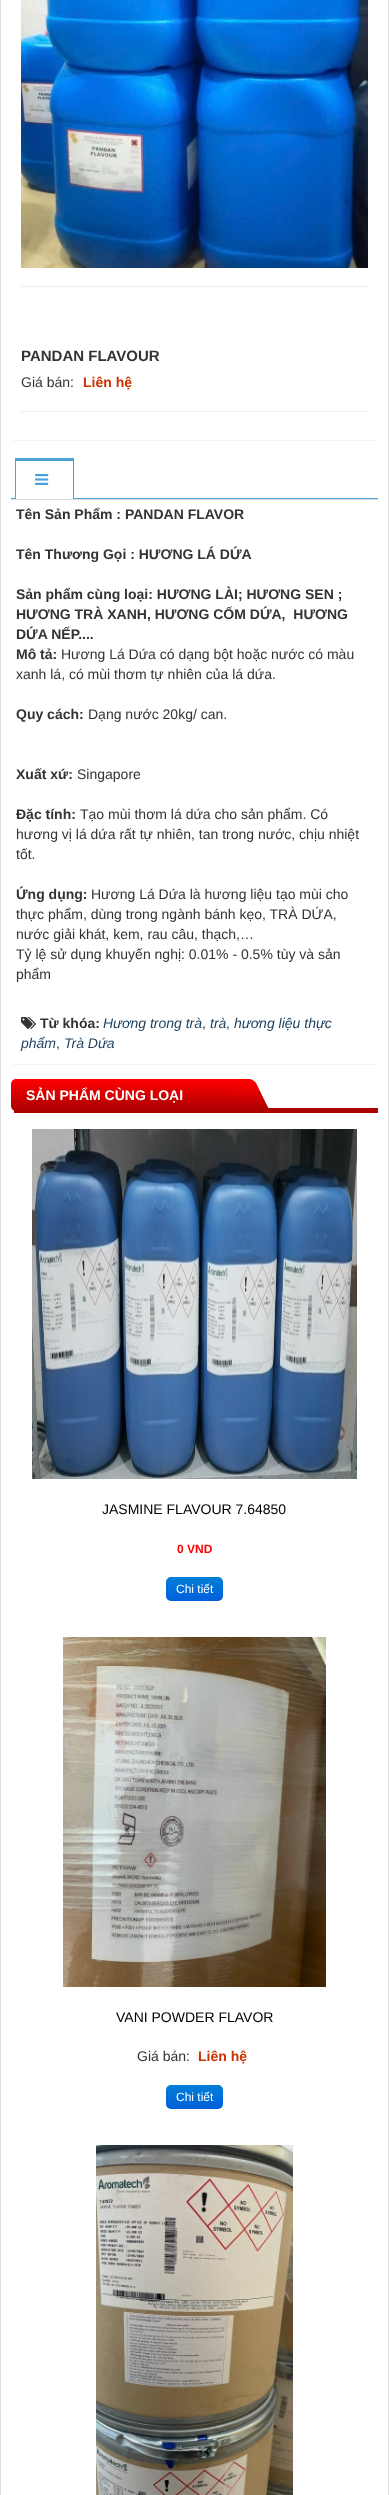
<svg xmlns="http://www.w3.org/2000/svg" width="389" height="2495">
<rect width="100%" height="100%" fill="#fff"/>
<rect x="388" width="1" height="2495" fill="#dcdcdc"/>
<rect width="1" height="2495" fill="#dcdcdc"/>
<rect x="11" y="-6" width="367" height="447" rx="4" fill="#0000000d" filter="blur(0.5px)"/>
<rect x="11" width="367" height="440" fill="#fff"/>
<image x="21" y="0" width="347" height="268" href="media/1.png"/>
<rect x="21" y="286" width="347" height="1" fill="#eee"/>
<text x="21" y="361" style="font-family:Liberation Sans;font-size:15px;font-weight:bold;fill:#333">PANDAN FLAVOUR</text>
<text x="21" y="387" style="font-family:Liberation Sans;font-size:14px;fill:#333">Giá bán:</text>
<text x="83" y="387" style="font-family:Liberation Sans;font-size:14px;font-weight:bold;fill:#c30">Liên hệ</text>
<rect x="21" y="411" width="347" height="1" fill="#eee"/>
<rect x="11" y="499" width="367" height="1" fill="#ddd"/>
<rect x="16" y="459" width="57" height="2" fill="#47a3da"/>
<rect x="15" y="458" width="59" height="1" fill="#47a3da"/>
<rect x="73" y="458" width="1" height="41" fill="#47a3da"/>
<rect x="15" y="458" width="1" height="41" fill="#47a3da"/>
<image x="35" y="474" width="14" height="11" href="media/2.png"/>
<rect x="11" y="498" width="5" height="1" fill="#47a3da"/>
<rect x="73" y="498" width="305" height="1" fill="#47a3da"/>
<text x="16" y="519" style="font-family:Liberation Sans;font-size:14px;font-weight:bold;fill:#333">Tên Sản Phẩm : PANDAN FLAVOR</text>
<text x="16" y="559" style="font-family:Liberation Sans;font-size:14px;font-weight:bold;fill:#333">Tên Thương Gọi : HƯƠNG LÁ DỨA</text>
<text x="16" y="599" style="font-family:Liberation Sans;font-size:14px;font-weight:bold;fill:#333">Sản phẩm cùng loại: HƯƠNG LÀI; HƯƠNG SEN ;</text>
<text x="16" y="619" style="font-family:Liberation Sans;font-size:14px;font-weight:bold;fill:#333" xml:space="preserve">HƯƠNG TRÀ XANH, HƯƠNG CỐM DỨA,  HƯƠNG</text>
<text x="16" y="639" style="font-family:Liberation Sans;font-size:14px;font-weight:bold;fill:#333">DỨA NẾP....</text>
<text x="16" y="659" style="font-family:Liberation Sans;font-size:14px;font-weight:bold;fill:#333">Mô tả:</text>
<text x="61" y="659" style="font-family:Liberation Sans;font-size:14px;fill:#333">Hương Lá Dứa có dạng bột hoặc nước có màu</text>
<text x="16" y="679" style="font-family:Liberation Sans;font-size:14px;fill:#333">xanh lá, có mùi thơm tự nhiên của lá dứa.</text>
<text x="16" y="719" style="font-family:Liberation Sans;font-size:14px;font-weight:bold;fill:#333">Quy cách:</text>
<text x="88" y="719" style="font-family:Liberation Sans;font-size:14px;fill:#333">Dạng nước 20kg/ can.</text>
<text x="16" y="779" style="font-family:Liberation Sans;font-size:14px;font-weight:bold;fill:#333">Xuất xứ:</text>
<text x="77" y="779" style="font-family:Liberation Sans;font-size:14px;fill:#333">Singapore</text>
<text x="16" y="819" style="font-family:Liberation Sans;font-size:14px;font-weight:bold;fill:#333">Đặc tính:</text>
<text x="80" y="819" style="font-family:Liberation Sans;font-size:14px;fill:#333">Tạo mùi thơm lá dứa cho sản phẩm. Có</text>
<text x="16" y="839" style="font-family:Liberation Sans;font-size:14px;fill:#333">hương vị lá dứa rất tự nhiên, tan trong nước, chịu nhiệt</text>
<text x="16" y="859" style="font-family:Liberation Sans;font-size:14px;fill:#333">tốt.</text>
<text x="16" y="899" style="font-family:Liberation Sans;font-size:14px;font-weight:bold;fill:#333">Ứng dụng:</text>
<text x="91" y="899" style="font-family:Liberation Sans;font-size:14px;fill:#333">Hương Lá Dứa là hương liệu tạo mùi cho</text>
<text x="16" y="919" style="font-family:Liberation Sans;font-size:14px;fill:#333">thực phẩm, dùng trong ngành bánh kẹo, TRÀ DỨA,</text>
<text x="16" y="939" style="font-family:Liberation Sans;font-size:14px;fill:#333">nước giải khát, kem, rau câu, thạch,…</text>
<text x="16" y="959" style="font-family:Liberation Sans;font-size:14px;fill:#333">Tỷ lệ sử dụng khuyến nghị: 0.01% - 0.5% tùy và sản</text>
<text x="16" y="979" style="font-family:Liberation Sans;font-size:14px;fill:#333">phẩm</text>
<rect x="11" y="1005" width="367" height="60" rx="4" fill="#0000000d" filter="blur(0.5px)"/>
<rect x="11" y="1005" width="367" height="59" fill="#fff"/>
<image x="21" y="1017" width="15" height="12" href="media/3.png"/>
<text x="40" y="1028" style="font-family:Liberation Sans;font-size:14px;font-weight:bold;fill:#333">Từ khóa:</text>
<text x="103" y="1028" style="font-family:Liberation Sans;font-size:14px;font-style:italic;fill:#1a3f5e">Hương trong trà</text>
<text x="202" y="1028" style="font-family:Liberation Sans;font-size:14px;fill:#333">,</text>
<text x="210" y="1028" style="font-family:Liberation Sans;font-size:14px;font-style:italic;fill:#1a3f5e">trà</text>
<text x="226" y="1028" style="font-family:Liberation Sans;font-size:14px;fill:#333">,</text>
<text x="234" y="1028" style="font-family:Liberation Sans;font-size:14px;font-style:italic;fill:#1a3f5e">hương liệu thực</text>
<text x="21" y="1048" style="font-family:Liberation Sans;font-size:14px;font-style:italic;fill:#1a3f5e">phẩm</text>
<text x="56" y="1048" style="font-family:Liberation Sans;font-size:14px;fill:#333">,</text>
<text x="64" y="1048" style="font-family:Liberation Sans;font-size:14px;font-style:italic;fill:#1a3f5e">Trà Dứa</text>
<rect x="14" y="1108" width="364" height="5" fill="#ad0000"/>
<image x="11" y="1079" width="222" height="32" href="media/4.png"/>
<text x="26" y="1100" style="font-family:Liberation Sans;font-size:14px;font-weight:bold;fill:#fff">SẢN PHẨM CÙNG LOẠI</text>
<image x="233" y="1079" width="36" height="30" href="media/5.png"/>
<image x="32" y="1129" width="325" height="350" href="media/6.png"/>
<text x="102" y="1514" style="font-family:Liberation Sans;font-size:14px;fill:#000">JASMINE FLAVOUR 7.64850</text>
<text x="177" y="1553" style="font-family:Liberation Sans;font-size:12px;font-weight:bold;fill:#f00">0 VND</text>
<image x="166" y="1577" width="57" height="24" href="media/7.png"/>
<text x="176" y="1593" style="font-family:Liberation Sans;font-size:12px;fill:#fff">Chi tiết</text>
<image x="63" y="1637" width="263" height="350" href="media/8.png"/>
<text x="116" y="2022" style="font-family:Liberation Sans;font-size:14px;fill:#000">VANI POWDER FLAVOR</text>
<text x="137" y="2061" style="font-family:Liberation Sans;font-size:14px;fill:#333">Giá bán:</text>
<text x="198" y="2061" style="font-family:Liberation Sans;font-size:14px;font-weight:bold;fill:#c30">Liên hệ</text>
<image x="166" y="2085" width="57" height="24" href="media/7.png"/>
<text x="176" y="2101" style="font-family:Liberation Sans;font-size:12px;fill:#fff">Chi tiết</text>
<image x="96" y="2145" width="197" height="350" href="media/9.png"/>
</svg>
